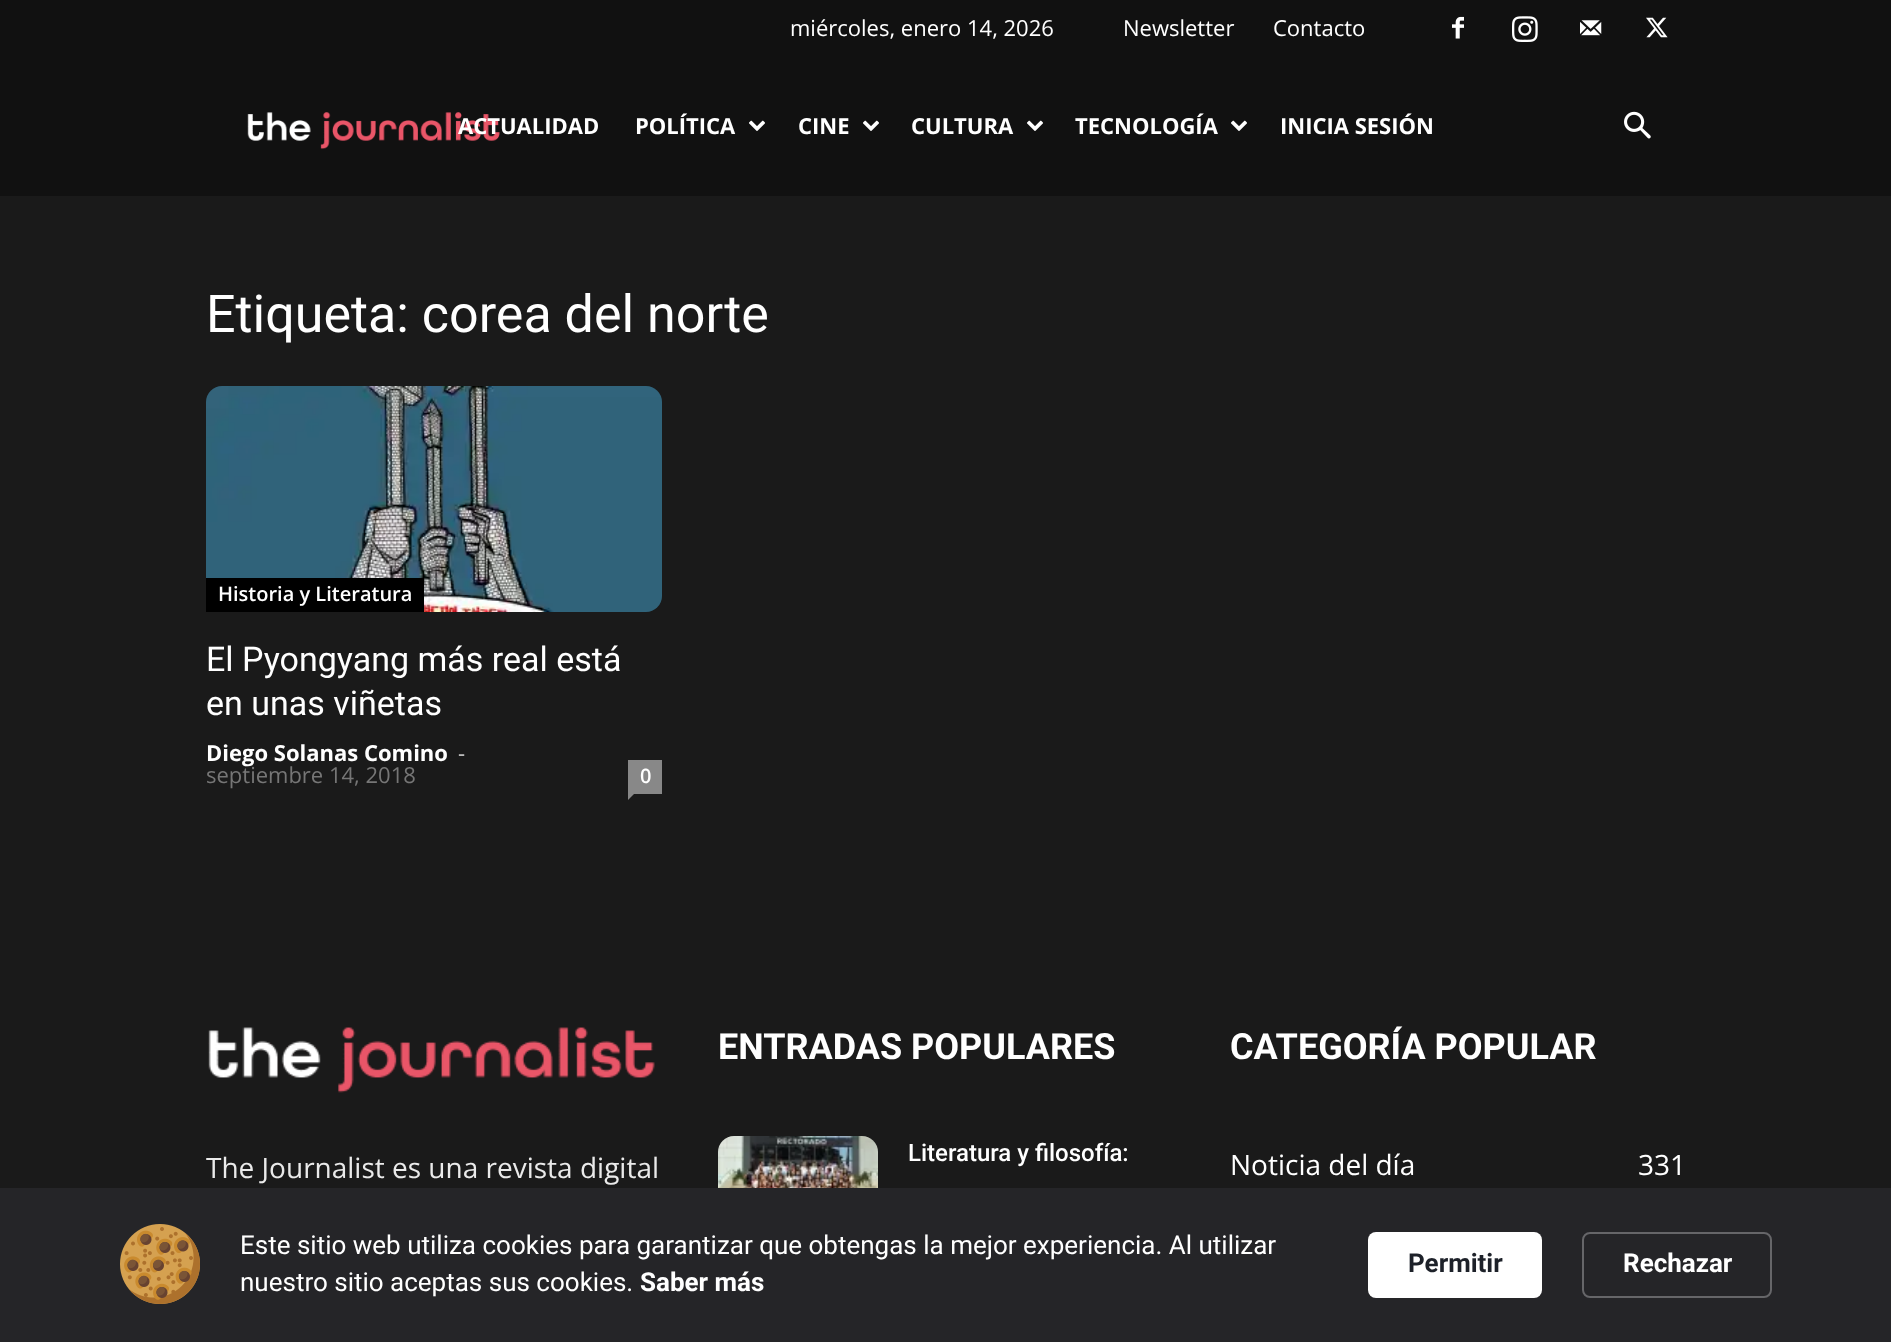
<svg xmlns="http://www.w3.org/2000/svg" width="1891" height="1342">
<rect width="100%" height="100%" fill="#1a1a1a"/>
<rect width="1891" height="196" fill="#111"/>
<text x="790" y="36" style="font-family:Open Sans;font-size:22px;fill:#fff">miércoles, enero 14, 2026</text>
<text x="1123" y="36" style="font-family:Open Sans;font-size:22px;fill:#fff">Newsletter</text>
<text x="1273" y="36" style="font-family:Open Sans;font-size:22px;fill:#fff">Contacto</text>
<image x="1452" y="16" width="12" height="23" href="media/1.png"/>
<image x="1512" y="16" width="26" height="26" href="media/2.png"/>
<image x="1580" y="20" width="22" height="16" href="media/3.png"/>
<image x="1646" y="17" width="22" height="21" href="media/4.png"/>
<image x="247" y="112" width="253" height="38" href="media/5.png"/>
<text x="458" y="134" style="font-family:Open Sans;font-size:22px;font-weight:bold;fill:#fff">ACTUALIDAD</text>
<text x="635" y="134" style="font-family:Open Sans;font-size:22px;font-weight:bold;fill:#fff">POLÍTICA</text>
<image x="749" y="120" width="16" height="11" href="media/6.png"/>
<text x="798" y="134" style="font-family:Open Sans;font-size:22px;font-weight:bold;fill:#fff">CINE</text>
<image x="863" y="120" width="16" height="11" href="media/6.png"/>
<text x="911" y="134" style="font-family:Open Sans;font-size:22px;font-weight:bold;fill:#fff">CULTURA</text>
<image x="1027" y="120" width="16" height="11" href="media/6.png"/>
<text x="1075" y="134" style="font-family:Open Sans;font-size:22px;font-weight:bold;fill:#fff">TECNOLOGÍA</text>
<image x="1231" y="120" width="16" height="11" href="media/6.png"/>
<text x="1280" y="134" style="font-family:Open Sans;font-size:22px;font-weight:bold;fill:#fff">INICIA SESIÓN</text>
<image x="1624" y="111" width="27" height="28" href="media/7.png"/>
<text x="206" y="332" style="font-family:Roboto;font-size:52px;fill:#fff">Etiqueta: corea del norte</text>
<image x="206" y="386" width="456" height="226" href="media/8.png"/>
<rect x="206" y="578" width="218" height="34" fill="#000"/>
<text x="218" y="601" style="font-family:Open Sans;font-size:20px;font-weight:600;fill:#fff">Historia y Literatura</text>
<text x="206" y="671" style="font-family:Roboto;font-size:34px;fill:#fff">El Pyongyang más real está</text>
<text x="206" y="715" style="font-family:Roboto;font-size:34px;fill:#fff">en unas viñetas</text>
<text x="206" y="761" style="font-family:Open Sans;font-size:22px;font-weight:bold;fill:#fff">Diego Solanas Comino</text>
<text x="458" y="761" style="font-family:Open Sans;font-size:22px;fill:#ccc">-</text>
<text x="206" y="783" style="font-family:Open Sans;font-size:22px;fill:#767676">septiembre 14, 2018</text>
<rect x="628" y="760" width="34" height="34" fill="#888"/>
<text x="640" y="783" style="font-family:Open Sans;font-size:20px;font-weight:600;fill:#fff">0</text>
<path d="M628 794h6l-6 6z" fill="#888"/>
<text x="718" y="1059" style="font-family:Roboto;font-size:36px;font-weight:bold;fill:#fff">ENTRADAS POPULARES</text>
<image x="718" y="1136" width="160" height="52" href="media/9.png"/>
<text x="908" y="1161" style="font-family:Roboto;font-size:24px;font-weight:500;fill:#fff">Literatura y filosofía:</text>
<text x="1230" y="1059" style="font-family:Roboto;font-size:36px;font-weight:bold;fill:#fff">CATEGORÍA POPULAR</text>
<text x="1230" y="1175" style="font-family:Open Sans;font-size:28px;fill:#fff">Noticia del día</text>
<text x="1638" y="1175" style="font-family:Open Sans;font-size:28px;fill:#fff">331</text>
<image x="208" y="1027" width="447" height="66" href="media/10.png"/>
<text x="206" y="1178" style="font-family:Open Sans;font-size:28px;fill:#eaeaea">The Journalist es una revista digital</text>
<rect y="1188" width="1891" height="154" fill="#252528"/>
<image x="120" y="1224" width="80" height="80" href="media/11.png"/>
<text x="240" y="1254" style="font-family:Roboto;font-size:26px;fill:#fff">Este sitio web utiliza cookies para garantizar que obtengas la mejor experiencia. Al utilizar</text>
<text x="240" y="1291" style="font-family:Roboto;font-size:26px;fill:#fff">nuestro sitio aceptas sus cookies.</text>
<text x="640" y="1291" style="font-family:Roboto;font-size:26px;font-weight:bold;fill:#fff">Saber más</text>
<rect x="1368" y="1232" width="174" height="66" rx="8" fill="#fff"/>
<text x="1408" y="1272" style="font-family:Roboto;font-size:26px;font-weight:bold;fill:#1d2129">Permitir</text>
<rect x="1583" y="1233" width="188" height="64" rx="7" fill="none" stroke="#666669" stroke-width="2"/>
<text x="1623" y="1272" style="font-family:Roboto;font-size:26px;font-weight:bold;fill:#fff">Rechazar</text>
</svg>
